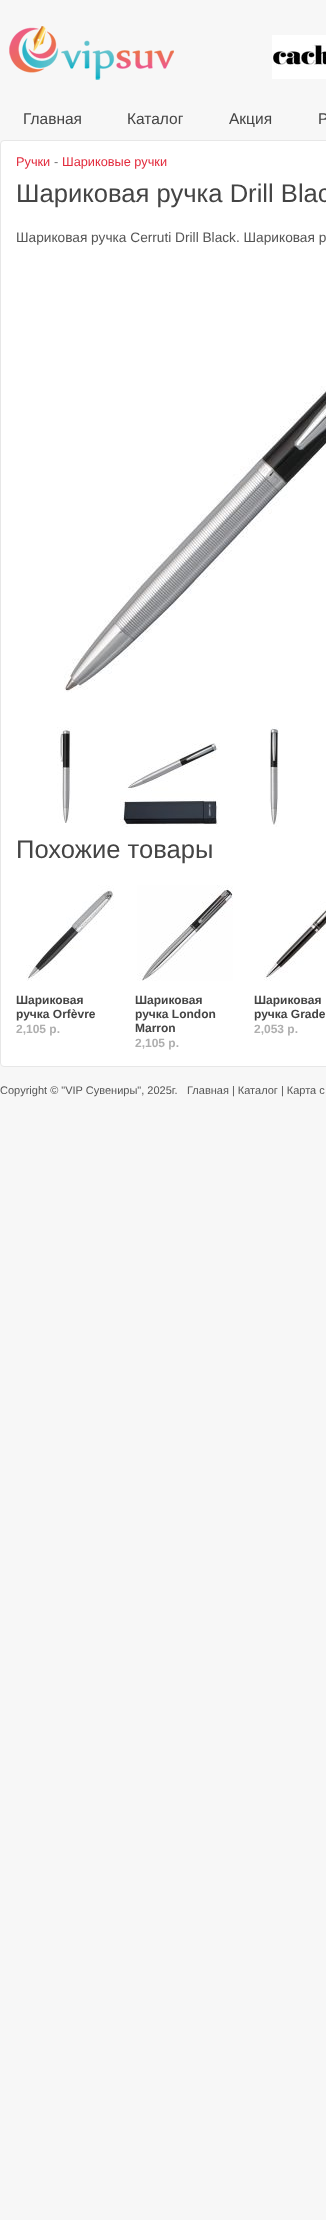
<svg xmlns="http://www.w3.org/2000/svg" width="326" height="2220">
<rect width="100%" height="100%" fill="#f7f7f7"/>
<image x="9" y="26" width="165" height="54" href="media/1.png"/>
<image x="272" y="35" width="54" height="44" href="media/2.png"/>
<text x="23" y="124" style="font-family:Liberation Sans;font-size:15.5px;fill:#444">Главная</text>
<text x="127" y="124" style="font-family:Liberation Sans;font-size:15.5px;fill:#444">Каталог</text>
<text x="229" y="124" style="font-family:Liberation Sans;font-size:15.5px;fill:#444">Акция</text>
<text x="318" y="124" style="font-family:Liberation Sans;font-size:15.5px;fill:#444">Р</text>
<rect x="0.5" y="140.5" width="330" height="926" rx="3.5" fill="#fff" stroke="#e7e7e7"/>
<text x="16" y="166" style="font-family:Liberation Sans;font-size:12.75px;fill:#e22a3c">Ручки</text>
<text x="54" y="166" style="font-family:Liberation Sans;font-size:12.75px;fill:#717173">-</text>
<text x="62" y="166" style="font-family:Liberation Sans;font-size:12.75px;fill:#e22a3c">Шариковые ручки</text>
<text x="16" y="202" style="font-family:Liberation Sans;font-size:25.6px;fill:#444">Шариковая ручка Drill Blac</text>
<text x="16" y="242" style="font-family:Liberation Sans;font-size:13.7px;fill:#555">Шариковая ручка Cerruti Drill Black. Шариковая р</text>
<image x="64" y="386" width="262" height="307" href="media/3.png"/>
<image x="57" y="727" width="15" height="96" href="media/4.png"/>
<image x="120" y="743" width="100" height="84" href="media/5.png"/>
<image x="269" y="727" width="10" height="100" href="media/6.png"/>
<text x="16" y="858" style="font-family:Liberation Sans;font-size:25.6px;fill:#444">Похожие товары</text>
<image x="26" y="885" width="88" height="96" href="media/7.png"/>
<text x="16" y="1004" style="font-family:Liberation Sans;font-size:12px;font-weight:bold;fill:#444">Шариковая</text>
<text x="16" y="1018" style="font-family:Liberation Sans;font-size:12px;font-weight:bold;fill:#444">ручка Orfèvre</text>
<text x="16" y="1033" style="font-family:Liberation Sans;font-size:12px;font-weight:bold;fill:#afafaf">2,105 р.</text>
<image x="137" y="885" width="96" height="96" href="media/8.png"/>
<text x="135" y="1004" style="font-family:Liberation Sans;font-size:12px;font-weight:bold;fill:#444">Шариковая</text>
<text x="135" y="1018" style="font-family:Liberation Sans;font-size:12px;font-weight:bold;fill:#444">ручка London</text>
<text x="135" y="1032" style="font-family:Liberation Sans;font-size:12px;font-weight:bold;fill:#444">Marron</text>
<text x="135" y="1047" style="font-family:Liberation Sans;font-size:12px;font-weight:bold;fill:#afafaf">2,105 р.</text>
<image x="264" y="901" width="62" height="80" href="media/9.png"/>
<text x="254" y="1004" style="font-family:Liberation Sans;font-size:12px;font-weight:bold;fill:#444">Шариковая</text>
<text x="254" y="1018" style="font-family:Liberation Sans;font-size:12px;font-weight:bold;fill:#444">ручка Grade</text>
<text x="254" y="1033" style="font-family:Liberation Sans;font-size:12px;font-weight:bold;fill:#afafaf">2,053 р.</text>
<text x="0" y="1094" style="font-family:Liberation Sans;font-size:11px;fill:#555">Copyright © "VIP Сувениры", 2025г.</text>
<text x="187" y="1094" style="font-family:Liberation Sans;font-size:11px;fill:#555">Главная | Каталог | Карта с</text>
</svg>
